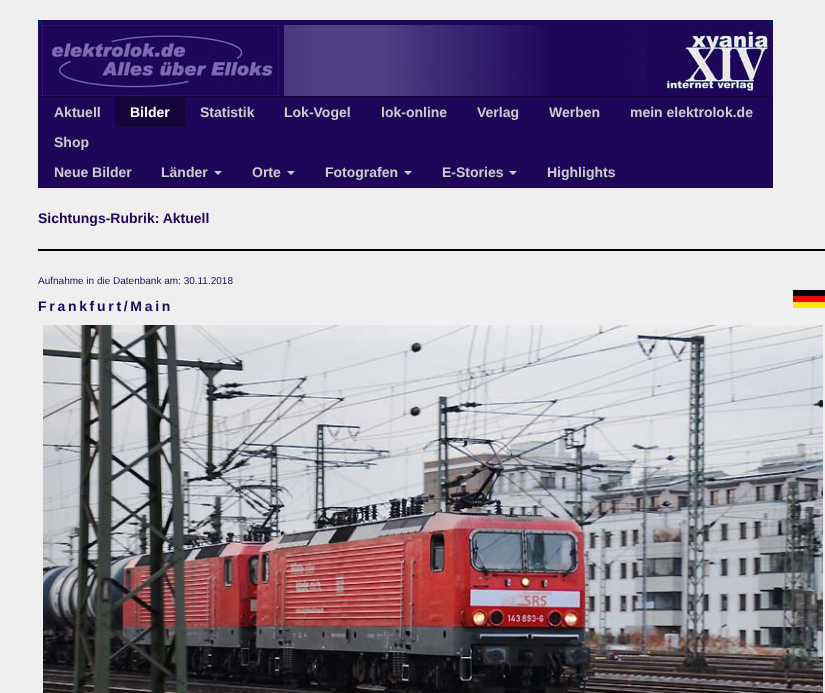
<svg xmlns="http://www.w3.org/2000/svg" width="825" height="693">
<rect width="100%" height="100%" fill="#efefef"/>
<rect x="38" y="20" width="4" height="5" fill="#011f68"/>
<rect x="42" y="20" width="727" height="5" fill="#1e0759"/>
<rect x="769" y="20" width="4" height="5" fill="#011f68"/>
<rect x="38" y="25" width="4" height="71" fill="#1e0759"/>
<rect x="279" y="25" width="5" height="71" fill="#1e0759"/>
<image x="42" y="25" width="237" height="71" href="media/1.png"/>
<image x="284" y="25" width="362" height="71" href="media/2.png"/>
<rect x="646" y="25" width="127" height="71" fill="#1e0759"/>
<image x="666" y="30" width="103" height="62" href="media/3.png"/>
<rect x="38.5" y="96.5" width="734" height="91" fill="#1e0759" stroke="#14053a"/>
<text x="54" y="117" style="font-family:Liberation Sans;font-size:14px;font-weight:bold;fill:#ccc">Aktuell</text>
<rect x="115" y="97" width="70" height="30" fill="#14053a"/>
<text x="130" y="117" style="font-family:Liberation Sans;font-size:14px;font-weight:bold;fill:#fff">Bilder</text>
<text x="200" y="117" style="font-family:Liberation Sans;font-size:14px;font-weight:bold;fill:#ccc">Statistik</text>
<text x="284" y="117" style="font-family:Liberation Sans;font-size:14px;font-weight:bold;fill:#ccc">Lok-Vogel</text>
<text x="381" y="117" style="font-family:Liberation Sans;font-size:14px;font-weight:bold;fill:#ccc">lok-online</text>
<text x="477" y="117" style="font-family:Liberation Sans;font-size:14px;font-weight:bold;fill:#ccc">Verlag</text>
<text x="549" y="117" style="font-family:Liberation Sans;font-size:14px;font-weight:bold;fill:#ccc">Werben</text>
<text x="630" y="117" style="font-family:Liberation Sans;font-size:14px;font-weight:bold;fill:#ccc">mein elektrolok.de</text>
<text x="54" y="147" style="font-family:Liberation Sans;font-size:14px;font-weight:bold;fill:#ccc">Shop</text>
<text x="54" y="177" style="font-family:Liberation Sans;font-size:14px;font-weight:bold;fill:#ccc">Neue Bilder</text>
<text x="161" y="177" style="font-family:Liberation Sans;font-size:14px;font-weight:bold;fill:#ccc">Länder</text>
<path d="M214 171h8l-4 4z" fill="#ccc"/>
<text x="252" y="177" style="font-family:Liberation Sans;font-size:14px;font-weight:bold;fill:#ccc">Orte</text>
<path d="M287 171h8l-4 4z" fill="#ccc"/>
<text x="325" y="177" style="font-family:Liberation Sans;font-size:14px;font-weight:bold;fill:#ccc">Fotografen</text>
<path d="M404 171h8l-4 4z" fill="#ccc"/>
<text x="442" y="177" style="font-family:Liberation Sans;font-size:14px;font-weight:bold;fill:#ccc">E-Stories</text>
<path d="M509 171h8l-4 4z" fill="#ccc"/>
<text x="547" y="177" style="font-family:Liberation Sans;font-size:14px;font-weight:bold;fill:#ccc">Highlights</text>
<text x="38" y="223" style="font-family:Liberation Sans;font-size:14px;font-weight:bold;fill:#1e0759">Sichtungs-Rubrik: Aktuell</text>
<rect x="38" y="249" width="787" height="2" fill="#000"/>
<text x="38" y="284" style="font-family:Liberation Sans;font-size:10px;fill:#1e0759">Aufnahme in die Datenbank am: 30.11.2018</text>
<text x="38" y="311" style="font-family:Liberation Sans;font-size:14px;font-weight:bold;letter-spacing:2.7px;fill:#1e0759">Frankfurt/Main</text>
<image x="793" y="290" width="32" height="18" href="media/4.png"/>
<image x="43" y="325" width="780" height="368" href="media/5.png"/>
</svg>
